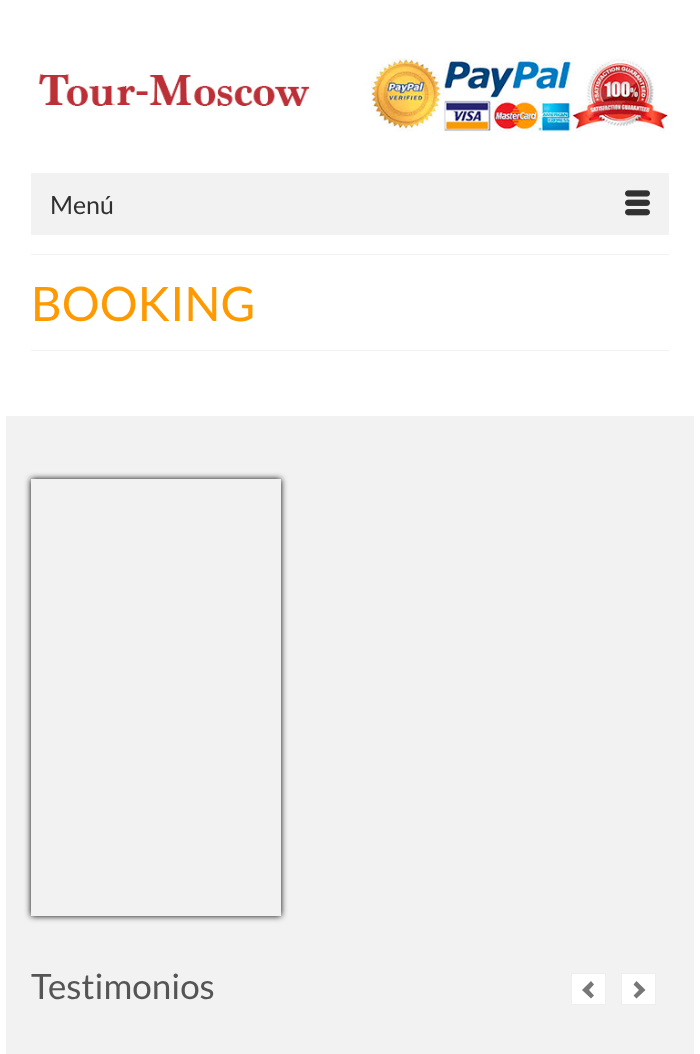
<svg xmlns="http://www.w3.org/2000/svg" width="700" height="1054">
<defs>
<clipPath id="clip1"><path d="M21 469h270v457h-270zm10 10h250v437h-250z" clip-rule="evenodd"/></clipPath>
</defs>
<rect width="100%" height="100%" fill="#fff"/>
<image x="38" y="58" width="631" height="74" href="media/1.png"/>
<rect x="31" y="173" width="638" height="62" fill="#f2f2f2"/>
<text x="50" y="214" style="font-family:Lato;font-size:25px;fill:#303030">Menú</text>
<image x="625" y="190" width="25" height="26" href="media/2.png"/>
<rect x="31" y="254" width="638" height="1" fill="#f2f2f2"/>
<rect x="31" y="350" width="638" height="1" fill="#f2f2f2"/>
<text x="31" y="321" style="font-family:Lato;font-size:47.5px;fill:#f90">BOOKING</text>
<rect x="6" y="416" width="688" height="638" fill="#f2f2f2"/>
<g clip-path="url(#clip1)">
<rect x="31" y="479" width="250" height="437" fill="#000" filter="blur(3px)"/>
</g>
<text x="31" y="999" style="font-family:Lato;font-size:35px;fill:#555">Testimonios</text>
<rect x="571.5" y="973.5" width="34" height="31" fill="#fff" stroke="#eee"/>
<path d="M591 998.5l3-3l-5-5.5l5-5.5l-3-3.5l-9 9z" fill="#777"/>
<rect x="621.5" y="973.5" width="34" height="31" fill="#fff" stroke="#eee"/>
<path d="M636.5 981l-3 3.5l5.5 5.5l-5.5 5.5l3 3l9-8.5z" fill="#777"/>
</svg>
